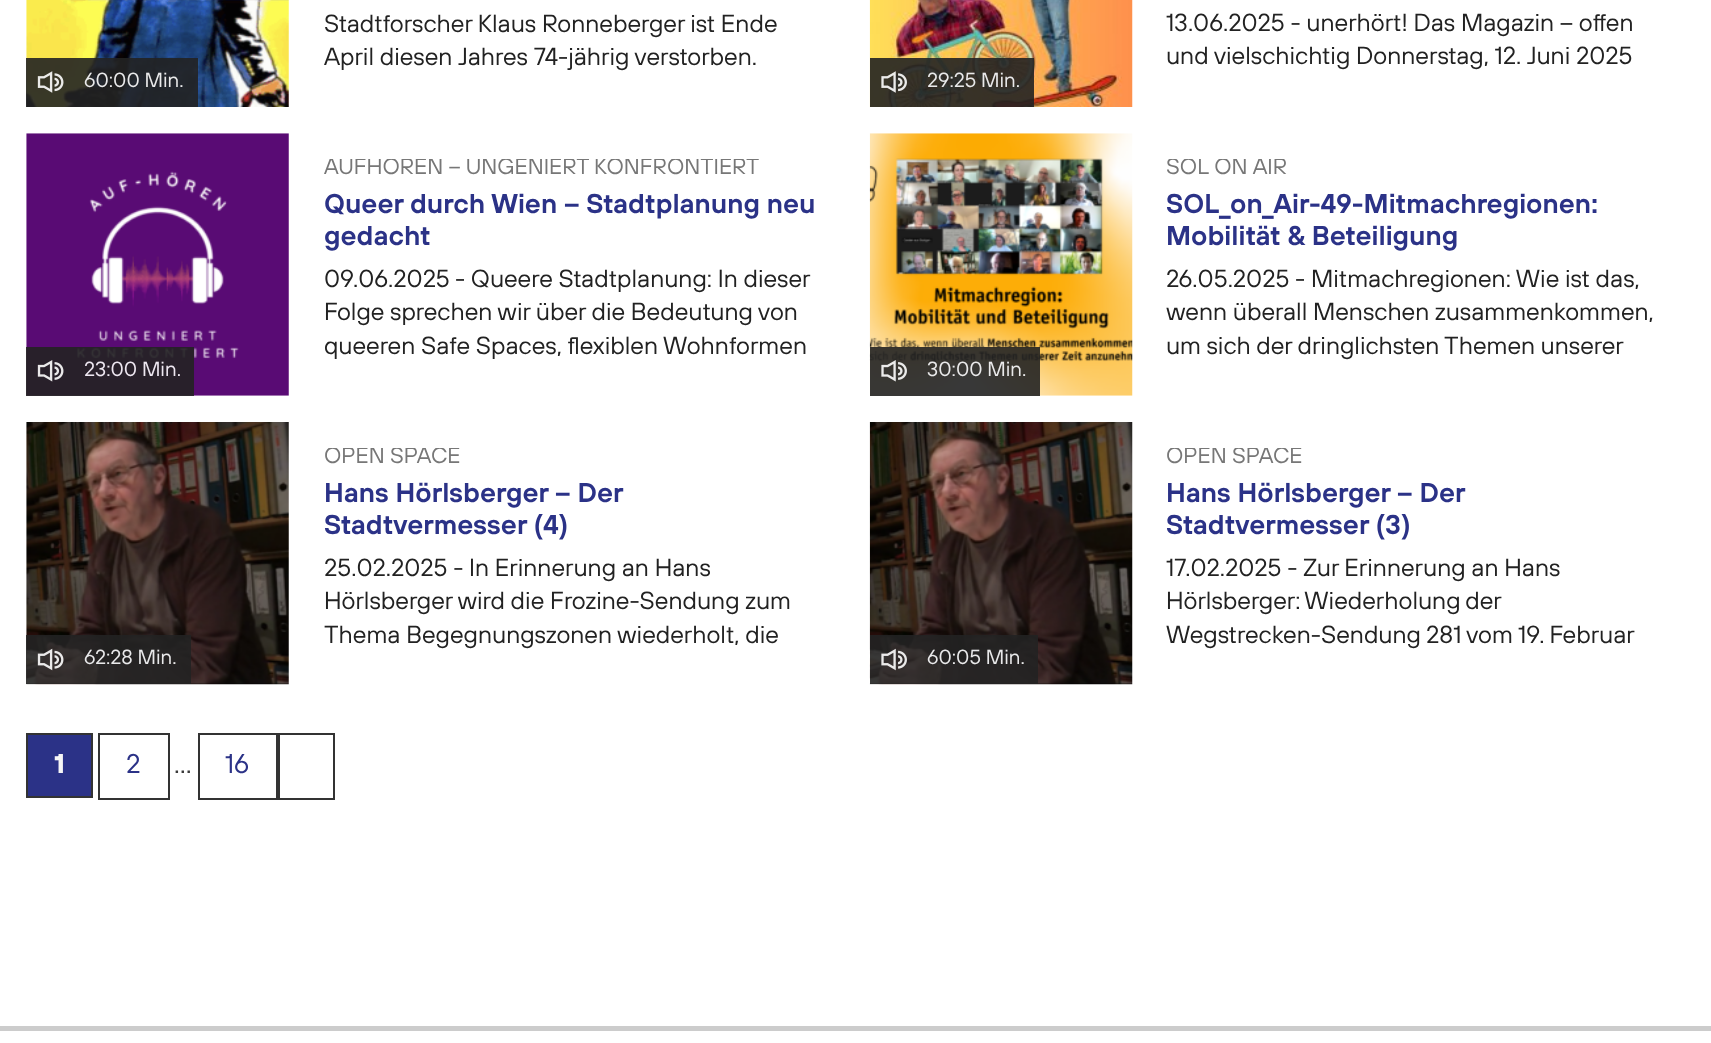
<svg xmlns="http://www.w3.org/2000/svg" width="1711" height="1043">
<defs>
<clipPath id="clip1"><rect x="324" y="159" width="493" height="23"/></clipPath>
<clipPath id="clip2"><rect x="1167" y="159" width="492" height="23"/></clipPath>
<clipPath id="clip3"><rect x="324" y="448" width="493" height="23"/></clipPath>
<clipPath id="clip4"><rect x="1167" y="448" width="492" height="23"/></clipPath>
</defs>
<rect width="100%" height="100%" fill="#fff"/>
<text x="324" y="32" style="font-family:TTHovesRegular;font-size:24.75px;fill:#222">Stadtforscher Klaus Ronneberger ist Ende</text>
<text x="324" y="65" style="font-family:TTHovesRegular;font-size:24.75px;fill:#222">April diesen Jahres 74-jährig verstorben.</text>
<image x="26" y="0" width="263" height="107" href="media/1.png"/>
<rect x="26" y="58" width="49" height="49" fill="#222222e6"/>
<image x="37" y="71" width="27" height="22" href="media/2.png"/>
<rect x="75" y="58" width="123" height="49" fill="#222222e6"/>
<text x="84" y="87" style="font-family:TTHovesRegular;font-size:20.5px;fill:#e9e9ea">60:00 Min.</text>
<text x="1166" y="31" style="font-family:TTHovesRegular;font-size:24.75px;fill:#222">13.06.2025 - unerhört! Das Magazin – offen</text>
<text x="1166" y="64" style="font-family:TTHovesRegular;font-size:24.75px;fill:#222">und vielschichtig Donnerstag, 12. Juni 2025</text>
<image x="869" y="0" width="264" height="107" href="media/3.png"/>
<rect x="870" y="58" width="49" height="49" fill="#222222e6"/>
<image x="881" y="71" width="26" height="22" href="media/4.png"/>
<rect x="919" y="58" width="115" height="49" fill="#222222e6"/>
<text x="927" y="87" style="font-family:TTHovesRegular;font-size:20.5px;fill:#e9e9ea">29:25 Min.</text>
<g clip-path="url(#clip1)">
<text x="324" y="174" style="font-family:TTHovesRegular;font-size:22.5px;fill:#777">AUFHÖREN – UNGENIERT KONFRONTIERT</text>
</g>
<text x="324" y="213" style="font-family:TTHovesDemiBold;font-size:27.25px;fill:#2b3287">Queer durch Wien – Stadtplanung neu</text>
<text x="324" y="245" style="font-family:TTHovesDemiBold;font-size:27.25px;fill:#2b3287">gedacht</text>
<text x="324" y="287" style="font-family:TTHovesRegular;font-size:24.75px;fill:#222">09.06.2025</text>
<text x="455" y="287" style="font-family:TTHovesRegular;font-size:24.75px;fill:#222">- Queere Stadtplanung: In dieser</text>
<text x="324" y="320" style="font-family:TTHovesRegular;font-size:24.75px;fill:#222">Folge sprechen wir über die Bedeutung von</text>
<text x="324" y="354" style="font-family:TTHovesRegular;font-size:24.75px;fill:#222">queeren Safe Spaces, flexiblen Wohnformen</text>
<image x="26" y="133" width="263" height="263" href="media/5.png"/>
<rect x="26" y="347" width="49" height="49" fill="#222222e6"/>
<image x="37" y="360" width="27" height="22" href="media/6.png"/>
<rect x="75" y="347" width="119" height="49" fill="#222222e6"/>
<text x="84" y="376" style="font-family:TTHovesRegular;font-size:20.5px;fill:#eee7f1">23:00 Min.</text>
<g clip-path="url(#clip2)">
<text x="1166" y="174" style="font-family:TTHovesRegular;font-size:22.5px;fill:#777">SOL ON AIR</text>
</g>
<text x="1166" y="213" style="font-family:TTHovesDemiBold;font-size:27.25px;fill:#2b3287">SOL_on_Air-49-Mitmachregionen:</text>
<text x="1166" y="245" style="font-family:TTHovesDemiBold;font-size:27.25px;fill:#2b3287">Mobilität &amp; Beteiligung</text>
<text x="1166" y="287" style="font-family:TTHovesRegular;font-size:24.75px;fill:#222">26.05.2025 - Mitmachregionen: Wie ist das,</text>
<text x="1166" y="320" style="font-family:TTHovesRegular;font-size:24.75px;fill:#222">wenn überall Menschen zusammenkommen,</text>
<text x="1166" y="354" word-spacing="-0.25" style="font-family:TTHovesRegular;font-size:24.75px;fill:#222">um sich der dringlichsten Themen unserer</text>
<image x="869" y="133" width="264" height="263" href="media/7.png"/>
<rect x="870" y="347" width="49" height="49" fill="#222222e6"/>
<image x="881" y="360" width="26" height="22" href="media/8.png"/>
<rect x="919" y="347" width="121" height="49" fill="#222222e6"/>
<text x="927" y="376" style="font-family:TTHovesRegular;font-size:20.5px;fill:#e9e9ea">30:00 Min.</text>
<g clip-path="url(#clip3)">
<text x="324" y="463" style="font-family:TTHovesRegular;font-size:22.5px;fill:#777">OPEN SPACE</text>
</g>
<text x="324" y="502" style="font-family:TTHovesDemiBold;font-size:27.25px;fill:#2b3287">Hans Hörlsberger – Der</text>
<text x="324" y="534" style="font-family:TTHovesDemiBold;font-size:27.25px;fill:#2b3287">Stadtvermesser (4)</text>
<text x="324" y="576" style="font-family:TTHovesRegular;font-size:24.75px;fill:#222">25.02.2025 - In Erinnerung an Hans</text>
<text x="324" y="609" style="font-family:TTHovesRegular;font-size:24.75px;fill:#222">Hörlsberger wird die Frozine-Sendung zum</text>
<text x="324" y="643" style="font-family:TTHovesRegular;font-size:24.75px;fill:#222">Thema Begegnungszonen wiederholt, die</text>
<image x="26" y="422" width="263" height="263" href="media/9.png"/>
<rect x="26" y="635" width="49" height="49" fill="#222222e6"/>
<image x="37" y="648" width="27" height="23" href="media/10.png"/>
<rect x="75" y="635" width="116" height="49" fill="#222222e6"/>
<text x="84" y="664" style="font-family:TTHovesRegular;font-size:20.5px;fill:#e9e9ea">62:28 Min.</text>
<g clip-path="url(#clip4)">
<text x="1166" y="463" style="font-family:TTHovesRegular;font-size:22.5px;fill:#777">OPEN SPACE</text>
</g>
<text x="1166" y="502" style="font-family:TTHovesDemiBold;font-size:27.25px;fill:#2b3287">Hans Hörlsberger – Der</text>
<text x="1166" y="534" style="font-family:TTHovesDemiBold;font-size:27.25px;fill:#2b3287">Stadtvermesser (3)</text>
<text x="1166" y="576" style="font-family:TTHovesRegular;font-size:24.75px;fill:#222">17.02.2025 - Zur Erinnerung an Hans</text>
<text x="1166" y="609" word-spacing="-1" style="font-family:TTHovesRegular;font-size:24.75px;fill:#222">Hörlsberger: Wiederholung der</text>
<text x="1166" y="643" word-spacing="-0.5" style="font-family:TTHovesRegular;font-size:24.75px;fill:#222">Wegstrecken-Sendung 281 vom 19. Februar</text>
<image x="869" y="422" width="264" height="263" href="media/11.png"/>
<rect x="870" y="635" width="49" height="49" fill="#222222e6"/>
<image x="881" y="648" width="26" height="23" href="media/12.png"/>
<rect x="919" y="635" width="119" height="49" fill="#222222e6"/>
<text x="927" y="664" style="font-family:TTHovesRegular;font-size:20.5px;fill:#e9e9ea">60:05 Min.</text>
<rect x="278" y="733" width="56" height="2" fill="#333"/>
<rect x="27" y="734" width="65" height="63" fill="#2b3287" stroke="#333" stroke-width="2"/>
<text x="54" y="773" style="font-family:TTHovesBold;font-size:27px;fill:#f6f6f6">1</text>
<rect x="99" y="734" width="70" height="65" fill="none" stroke="#333" stroke-width="2"/>
<text x="126" y="773" style="font-family:TTHovesRegular;font-size:27px;fill:#2b3287">2</text>
<text x="174" y="773" style="font-family:TTHovesRegular;font-size:27px;fill:#3a3a3a">…</text>
<rect x="199" y="734" width="78" height="65" fill="none" stroke="#333" stroke-width="2"/>
<text x="225" y="773" style="font-family:TTHovesRegular;font-size:27px;fill:#2b3287">16</text>
<rect x="278" y="798" width="28" height="2" fill="#333"/>
<rect x="278" y="733" width="2" height="67" fill="#333"/>
<rect x="333" y="733" width="2" height="67" fill="#333"/>
<rect x="306" y="798" width="28" height="2" fill="#333"/>
<rect y="1026" width="1711" height="5" fill="#ccc"/>
</svg>
